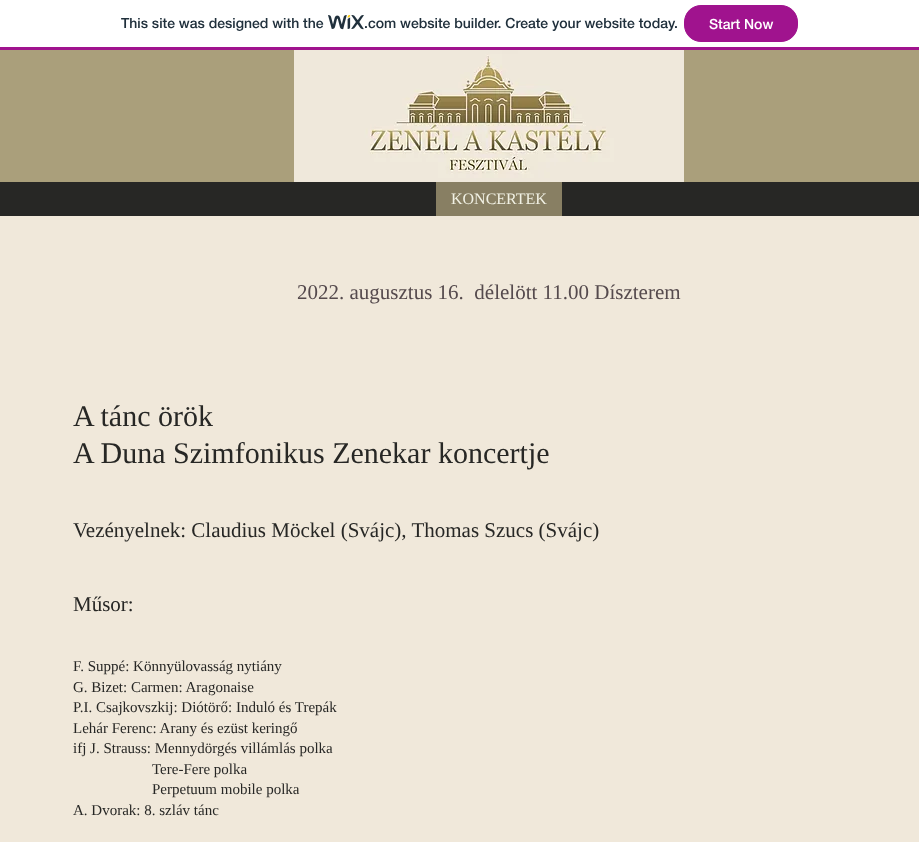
<svg xmlns="http://www.w3.org/2000/svg" width="919" height="842">
<rect width="100%" height="100%" fill="#f0e8da"/>
<rect width="919" height="47" fill="#fff"/>
<rect y="47" width="919" height="3" fill="#a0138e"/>
<text x="121" y="28" style="font-family:'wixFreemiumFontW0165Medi';font-size:14px;font-weight:500;fill:#20303c">This site was designed with the</text>
<image x="328" y="15" width="36" height="15" href="media/1.png"/>
<text x="364" y="28" style="font-family:'wixFreemiumFontW0165Medi';font-size:14px;font-weight:500;fill:#20303c">.com website builder. Create your website today.</text>
<rect x="684.5" y="5.5" width="113" height="36" rx="16.5" fill="#a0138e" stroke="#a0138e"/>
<text x="709" y="29" style="font-family:'wixFreemiumFontW0165Medi';font-size:14px;font-weight:500;fill:#fff">Start Now</text>
<rect y="50" width="919" height="132" fill="#aa9f7b"/>
<image x="294" y="50" width="390" height="132" href="media/2.png"/>
<rect y="182" width="919" height="34" fill="#272725"/>
<rect x="436" y="182" width="126" height="34" fill="#887f63"/>
<text x="451" y="204" style="font-family:Liberation Serif;font-size:16px;fill:#f1f1e4">KONCERTEK</text>
<text x="297" y="299" style="font-family:Liberation Serif;font-size:21px;fill:#554a4d" xml:space="preserve">2022. augusztus 16.  délelött 11.00 Díszterem</text>
<text x="73" y="426" style="font-family:Liberation Serif;font-size:30px;fill:#272725">A tánc örök</text>
<text x="73" y="463" style="font-family:Liberation Serif;font-size:30px;fill:#272725">A Duna Szimfonikus Zenekar koncertje</text>
<text x="73" y="537" style="font-family:Liberation Serif;font-size:21px;fill:#272725">Vezényelnek: Claudius Möckel (Svájc), Thomas Szucs (Svájc)</text>
<text x="73" y="611" style="font-family:Liberation Serif;font-size:21px;fill:#272725">Műsor:</text>
<text x="73" y="671" style="font-family:Liberation Serif;font-size:15px;fill:#272725">F. Suppé: Könnyülovasság nytiány</text>
<text x="73" y="692" style="font-family:Liberation Serif;font-size:15px;fill:#272725">G. Bizet: Carmen: Aragonaise</text>
<text x="73" y="712" style="font-family:Liberation Serif;font-size:15px;fill:#272725">P.I. Csajkovszkij: Diótörő: Induló és Trepák</text>
<text x="73" y="733" style="font-family:Liberation Serif;font-size:15px;fill:#272725">Lehár Ferenc: Arany és ezüst keringő</text>
<text x="73" y="753" style="font-family:Liberation Serif;font-size:15px;fill:#272725">ifj J. Strauss: Mennydörgés villámlás polka</text>
<text x="152" y="774" style="font-family:Liberation Serif;font-size:15px;fill:#272725">Tere-Fere polka</text>
<text x="152" y="794" style="font-family:Liberation Serif;font-size:15px;fill:#272725">Perpetuum mobile polka</text>
<text x="73" y="815" style="font-family:Liberation Serif;font-size:15px;fill:#272725">A. Dvorak: 8. szláv tánc</text>
</svg>
